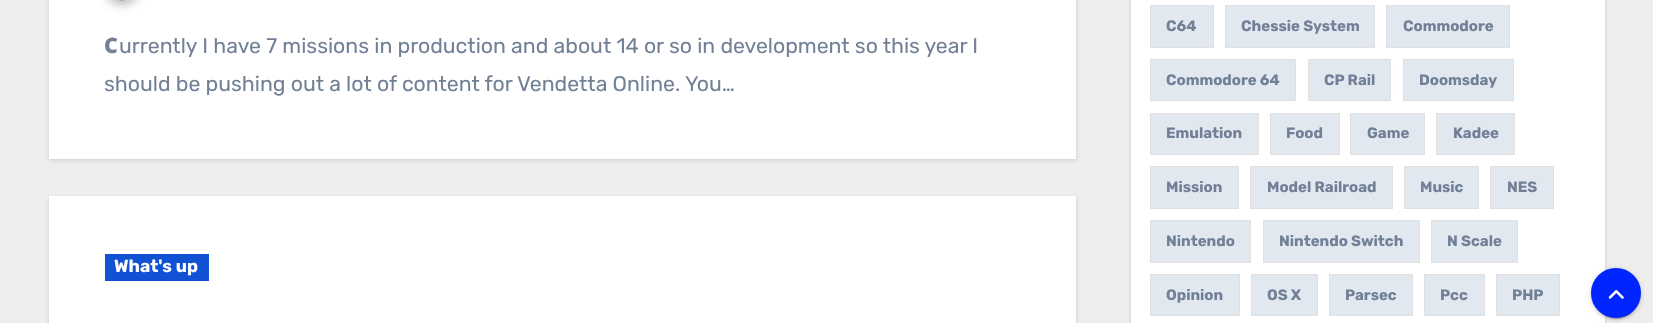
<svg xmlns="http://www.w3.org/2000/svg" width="1653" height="323">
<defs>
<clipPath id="clip1"><path d="M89 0h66v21h-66zm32.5-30h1c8.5 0 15.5 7 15.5 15.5c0 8.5-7 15.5-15.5 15.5h-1c-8.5 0-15.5-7-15.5-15.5c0-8.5 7-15.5 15.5-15.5z" clip-rule="evenodd"/></clipPath>
</defs>
<rect width="100%" height="100%" fill="#eee"/>
<rect x="49" y="-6" width="1027" height="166" fill="#00000026" filter="blur(2px)"/>
<rect x="49" width="1027" height="159" fill="#fff"/>
<g clip-path="url(#clip1)">
<rect x="105" y="-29" width="34" height="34" rx="17" fill="#2121214d" filter="blur(5px)"/>
</g>
<image x="117" y="0" width="10" height="1" href="media/1.png"/>
<text x="104" y="53" style="font-family:Noto Sans;font-size:21.25px;font-weight:900;fill:#718096">C</text>
<text x="119" y="53" style="font-family:Rubik;font-size:21.25px;font-weight:300;fill:#718096">urrently I have 7 missions in production and about 14 or so in development so this year I</text>
<text x="104" y="91" style="font-family:Rubik;font-size:21.25px;font-weight:300;fill:#718096">should be pushing out a lot of content for Vendetta Online. You…</text>
<rect x="49" y="198" width="1027" height="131" fill="#00000026" filter="blur(2px)"/>
<rect x="49" y="196" width="1027" height="127" fill="#fff"/>
<rect x="105" y="254" width="104" height="27" fill="#1151d3"/>
<text x="114" y="272" style="font-family:Rubik;font-size:17.5px;font-weight:bold;fill:#fff">What's up</text>
<rect x="1131" y="-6" width="474" height="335" fill="#00000026" filter="blur(2px)"/>
<rect x="1131" width="474" height="323" fill="#fff"/>
<rect x="1150.5" y="5.5" width="63" height="42" fill="#e2e8f0" stroke="#e0e0e0"/>
<text x="1166" y="31" style="font-family:Rubik;font-size:15px;font-weight:bold;fill:#718096">C64</text>
<rect x="1225.5" y="5.5" width="149" height="42" fill="#e2e8f0" stroke="#e0e0e0"/>
<text x="1241" y="31" style="font-family:Rubik;font-size:15px;font-weight:bold;fill:#718096">Chessie System</text>
<rect x="1386.5" y="5.5" width="123" height="42" fill="#e2e8f0" stroke="#e0e0e0"/>
<text x="1403" y="31" style="font-family:Rubik;font-size:15px;font-weight:bold;fill:#718096">Commodore</text>
<rect x="1150.5" y="59.5" width="145" height="41" fill="#e2e8f0" stroke="#e0e0e0"/>
<text x="1166" y="85" style="font-family:Rubik;font-size:15px;font-weight:bold;fill:#718096">Commodore 64</text>
<rect x="1308.5" y="59.5" width="82" height="41" fill="#e2e8f0" stroke="#e0e0e0"/>
<text x="1324" y="85" style="font-family:Rubik;font-size:15px;font-weight:bold;fill:#718096">CP Rail</text>
<rect x="1403.5" y="59.5" width="110" height="41" fill="#e2e8f0" stroke="#e0e0e0"/>
<text x="1419" y="85" style="font-family:Rubik;font-size:15px;font-weight:bold;fill:#718096">Doomsday</text>
<rect x="1150.5" y="113.5" width="108" height="41" fill="#e2e8f0" stroke="#e0e0e0"/>
<text x="1166" y="138" style="font-family:Rubik;font-size:15px;font-weight:bold;fill:#718096">Emulation</text>
<rect x="1270.5" y="113.5" width="69" height="41" fill="#e2e8f0" stroke="#e0e0e0"/>
<text x="1286" y="138" style="font-family:Rubik;font-size:15px;font-weight:bold;fill:#718096">Food</text>
<rect x="1350.5" y="113.5" width="74" height="41" fill="#e2e8f0" stroke="#e0e0e0"/>
<text x="1367" y="138" style="font-family:Rubik;font-size:15px;font-weight:bold;fill:#718096">Game</text>
<rect x="1436.5" y="113.5" width="78" height="41" fill="#e2e8f0" stroke="#e0e0e0"/>
<text x="1453" y="138" style="font-family:Rubik;font-size:15px;font-weight:bold;fill:#718096">Kadee</text>
<rect x="1150.5" y="166.5" width="88" height="42" fill="#e2e8f0" stroke="#e0e0e0"/>
<text x="1166" y="192" style="font-family:Rubik;font-size:15px;font-weight:bold;fill:#718096">Mission</text>
<rect x="1250.5" y="166.5" width="142" height="42" fill="#e2e8f0" stroke="#e0e0e0"/>
<text x="1267" y="192" style="font-family:Rubik;font-size:15px;font-weight:bold;fill:#718096">Model Railroad</text>
<rect x="1404.5" y="166.5" width="74" height="42" fill="#e2e8f0" stroke="#e0e0e0"/>
<text x="1420" y="192" style="font-family:Rubik;font-size:15px;font-weight:bold;fill:#718096">Music</text>
<rect x="1490.5" y="166.5" width="63" height="42" fill="#e2e8f0" stroke="#e0e0e0"/>
<text x="1507" y="192" style="font-family:Rubik;font-size:15px;font-weight:bold;fill:#718096">NES</text>
<rect x="1150.5" y="220.5" width="100" height="42" fill="#e2e8f0" stroke="#e0e0e0"/>
<text x="1166" y="246" style="font-family:Rubik;font-size:15px;font-weight:bold;fill:#718096">Nintendo</text>
<rect x="1263.5" y="220.5" width="156" height="42" fill="#e2e8f0" stroke="#e0e0e0"/>
<text x="1279" y="246" style="font-family:Rubik;font-size:15px;font-weight:bold;fill:#718096">Nintendo Switch</text>
<rect x="1431.5" y="220.5" width="86" height="42" fill="#e2e8f0" stroke="#e0e0e0"/>
<text x="1447" y="246" style="font-family:Rubik;font-size:15px;font-weight:bold;fill:#718096">N Scale</text>
<rect x="1150.5" y="274.5" width="89" height="41" fill="#e2e8f0" stroke="#e0e0e0"/>
<text x="1166" y="300" style="font-family:Rubik;font-size:15px;font-weight:bold;fill:#718096">Opinion</text>
<rect x="1251.5" y="274.5" width="66" height="41" fill="#e2e8f0" stroke="#e0e0e0"/>
<text x="1267" y="300" style="font-family:Rubik;font-size:15px;font-weight:bold;fill:#718096">OS X</text>
<rect x="1329.5" y="274.5" width="83" height="41" fill="#e2e8f0" stroke="#e0e0e0"/>
<text x="1345" y="300" style="font-family:Rubik;font-size:15px;font-weight:bold;fill:#718096">Parsec</text>
<rect x="1424.5" y="274.5" width="60" height="41" fill="#e2e8f0" stroke="#e0e0e0"/>
<text x="1440" y="300" style="font-family:Rubik;font-size:15px;font-weight:bold;fill:#718096">Pcc</text>
<rect x="1496.5" y="274.5" width="63" height="41" fill="#e2e8f0" stroke="#e0e0e0"/>
<text x="1512" y="300" style="font-family:Rubik;font-size:15px;font-weight:bold;fill:#718096">PHP</text>
<rect x="1591" y="269" width="50" height="50" rx="25" fill="#0000001f" filter="blur(3px)"/>
<rect x="1594" y="274" width="45" height="45" rx="22.5" fill="#00000033" filter="blur(0.5px)"/>
<rect x="1591" y="270" width="50" height="50" rx="25" fill="#00000024" filter="blur(1px)"/>
<circle cx="1616" cy="293" r="23.5" fill="#0025ff" stroke="#0025ff" stroke-width="3"/>
<image x="1608" y="290" width="16" height="9" href="media/2.png"/>
</svg>
